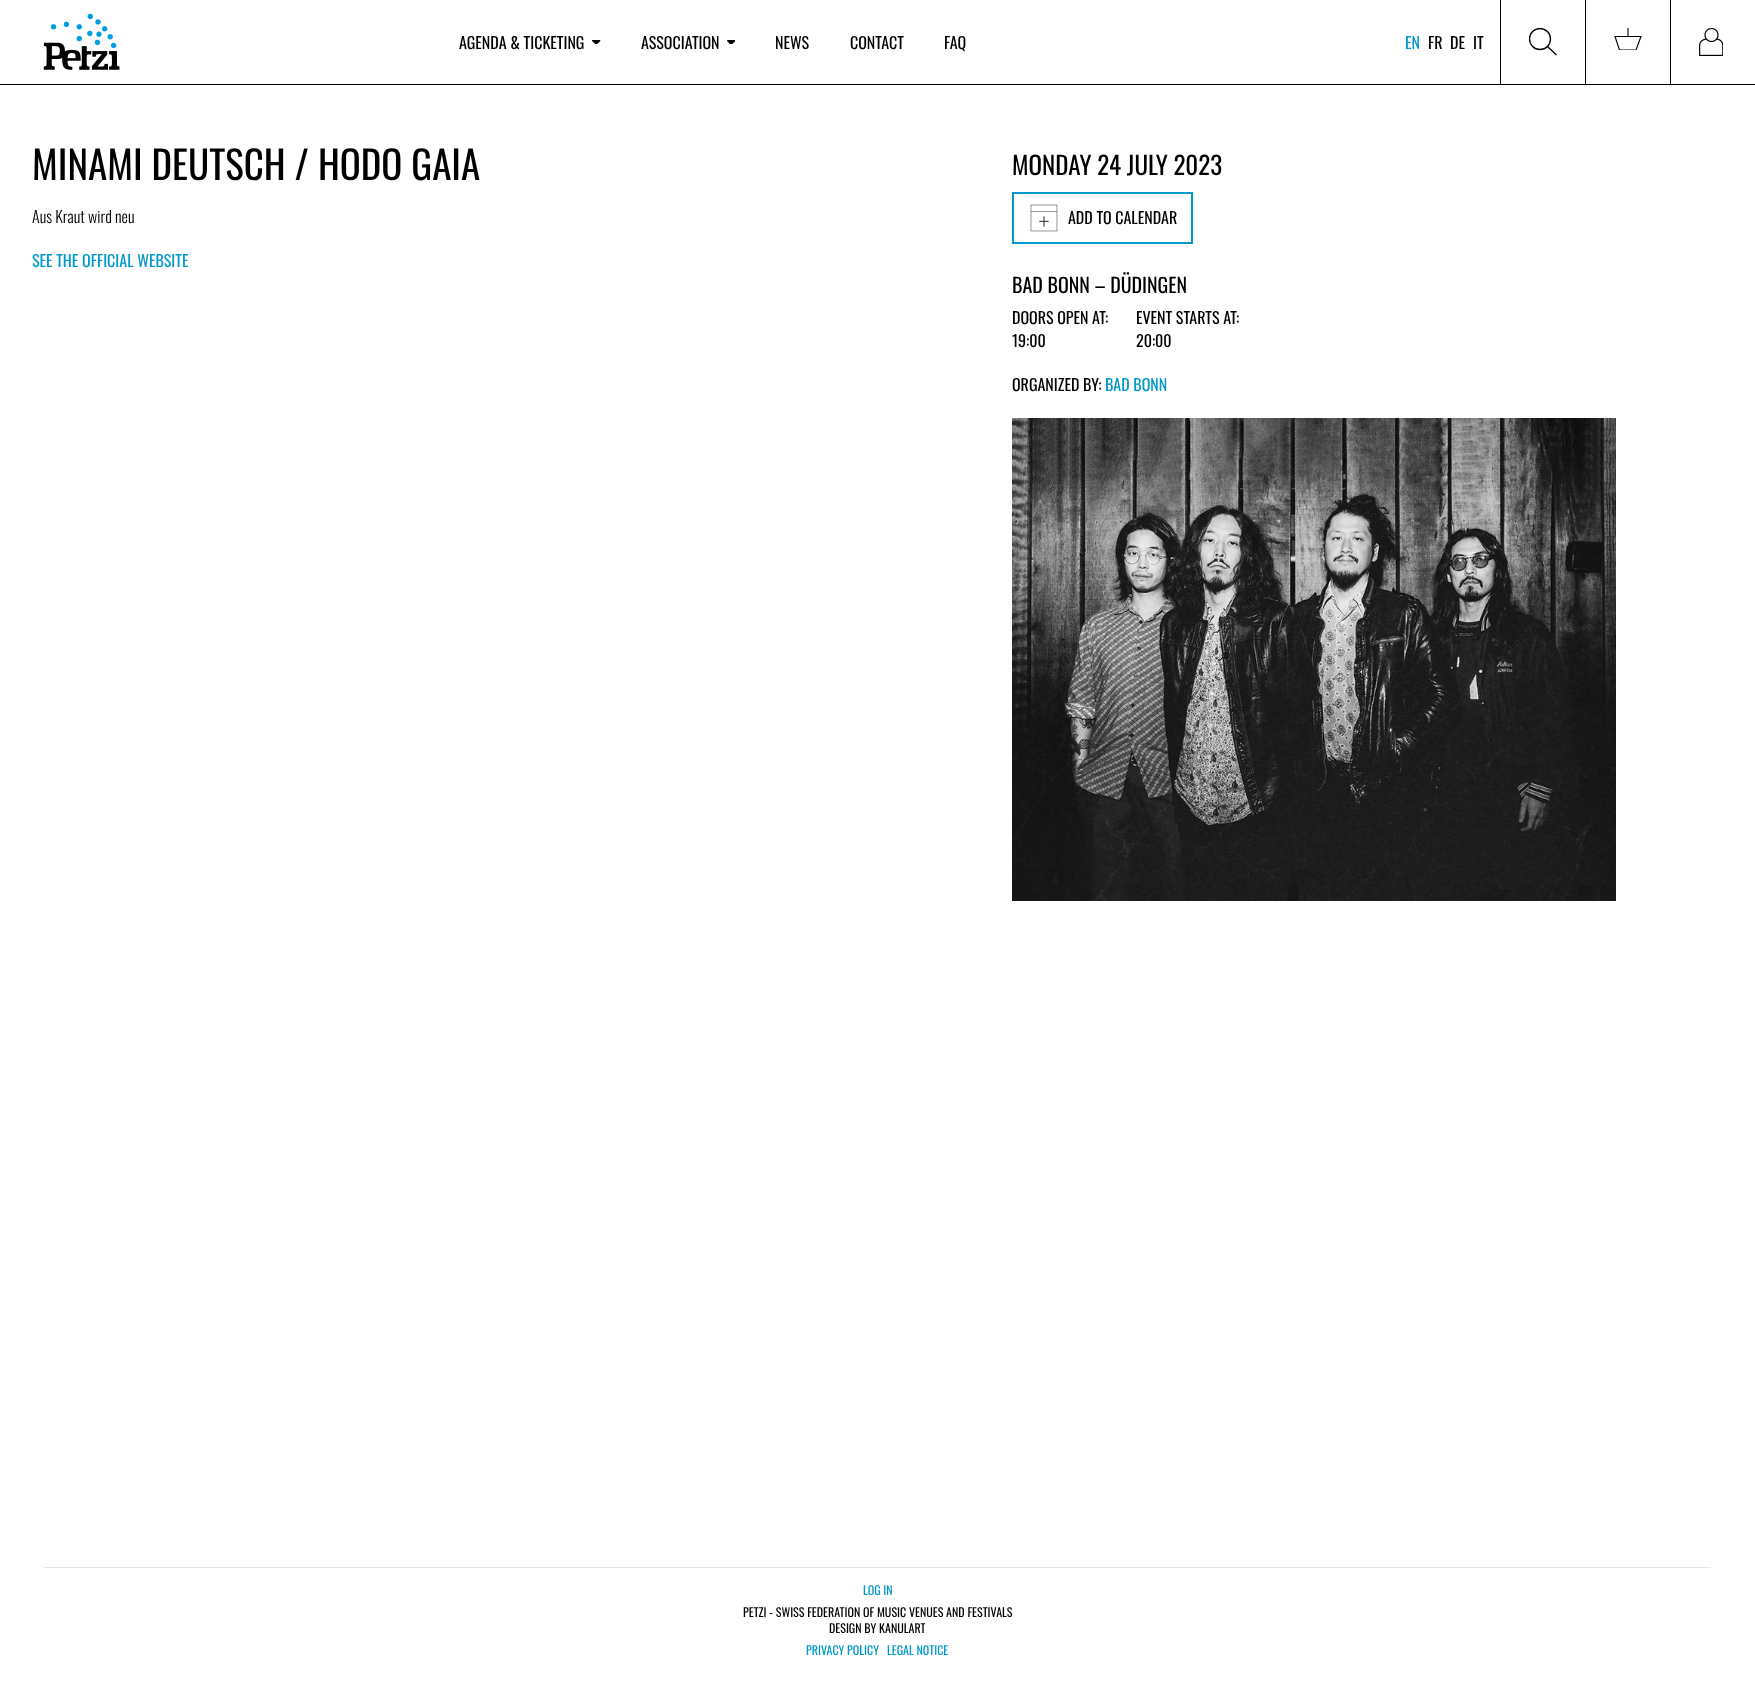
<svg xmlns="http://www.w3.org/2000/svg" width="1755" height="1684">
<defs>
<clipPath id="clip1"><rect x="1529" y="28" width="28" height="27"/></clipPath>
<clipPath id="clip2"><rect x="1614" y="28" width="28" height="22"/></clipPath>
</defs>
<rect width="100%" height="100%" fill="#fff"/>
<rect y="84" width="1755" height="1" fill="#000"/>
<image x="43" y="13" width="77" height="57" href="media/1.png"/>
<text x="459" y="49" style="font-family:Oswald;font-size:16px;fill:#000">AGENDA &amp; TICKETING</text>
<image x="592" y="40" width="9" height="4" href="media/2.png"/>
<text x="641" y="49" style="font-family:Oswald;font-size:16px;fill:#000">ASSOCIATION</text>
<image x="727" y="40" width="8" height="4" href="media/3.png"/>
<text x="775" y="49" style="font-family:Oswald;font-size:16px;fill:#000">NEWS</text>
<text x="850" y="49" style="font-family:Oswald;font-size:16px;fill:#000">CONTACT</text>
<text x="944" y="49" style="font-family:Oswald;font-size:16px;fill:#000">FAQ</text>
<text x="1405" y="49" style="font-family:Oswald;font-size:16px;fill:#0099cb">EN</text>
<text x="1428" y="49" style="font-family:Oswald;font-size:16px;fill:#000">FR</text>
<text x="1450" y="49" style="font-family:Oswald;font-size:16px;fill:#000">DE</text>
<text x="1473" y="49" style="font-family:Oswald;font-size:16px;fill:#000">IT</text>
<rect x="1585" width="1" height="84" fill="#000"/>
<rect x="1500" width="1" height="84" fill="#000"/>
<g clip-path="url(#clip1)">
<circle cx="1540" cy="39" r="10.5" fill="none" stroke="#000" stroke-width="1.3"/>
</g>
<path d="M1547.5 46.5l9 8.5" fill="none" stroke="#000" stroke-width="1.3"/>
<rect x="1670" width="1" height="84" fill="#000"/>
<g clip-path="url(#clip2)">
<path d="M1615 36.5h26l-5 13.5h-16.5z" fill="none" stroke="#000" stroke-width="1.1"/>
</g>
<path d="M1628 28v8.5" fill="none" stroke="#000" stroke-width="1.1"/>
<image x="1699" y="28" width="24" height="28" href="media/4.png"/>
<text x="32" y="180" style="font-family:Oswald;font-size:39px;fill:#000">MINAMI DEUTSCH / HODO GAIA</text>
<text x="32" y="223" style="font-family:Oswald;font-size:16px;font-weight:300;fill:#000">Aus Kraut wird neu</text>
<text x="32" y="267" style="font-family:Oswald;font-size:16px;fill:#0099cb">SEE THE OFFICIAL WEBSITE</text>
<text x="1012" y="175" style="font-family:Oswald;font-size:25px;fill:#000">MONDAY 24 JULY 2023</text>
<rect x="1013" y="193" width="179" height="50" fill="none" stroke="#0099cb" stroke-width="2"/>
<image x="1030" y="204" width="28" height="28" href="media/5.png"/>
<text x="1068" y="224" style="font-family:Oswald;font-size:16px;fill:#000">ADD TO CALENDAR</text>
<text x="1012" y="293" style="font-family:Oswald;font-size:20px;fill:#000">BAD BONN – DÜDINGEN</text>
<text x="1012" y="324" style="font-family:Oswald;font-size:16px;fill:#000">DOORS OPEN AT:</text>
<text x="1012" y="347" style="font-family:Oswald;font-size:16px;fill:#000">19:00</text>
<text x="1136" y="324" style="font-family:Oswald;font-size:16px;fill:#000">EVENT STARTS AT:</text>
<text x="1136" y="347" style="font-family:Oswald;font-size:16px;fill:#000">20:00</text>
<text x="1012" y="391" style="font-family:Oswald;font-size:16px;fill:#000">ORGANIZED BY:</text>
<text x="1105" y="391" style="font-family:Oswald;font-size:16px;fill:#0099cb">BAD BONN</text>
<image x="1012" y="418" width="604" height="483" href="media/6.png"/>
<rect x="44" y="1567" width="1667" height="1" fill="#e4e4e4"/>
<text x="863" y="1595" style="font-family:Oswald;font-size:12px;fill:#0099cb">LOG IN</text>
<text x="743" y="1617" style="font-family:Oswald;font-size:12px;fill:#000">PETZI - SWISS FEDERATION OF MUSIC VENUES AND FESTIVALS</text>
<text x="829" y="1633" style="font-family:Oswald;font-size:12px;fill:#000">DESIGN BY KANULART</text>
<text x="806" y="1655" style="font-family:Oswald;font-size:12px;fill:#0099cb">PRIVACY POLICY</text>
<text x="887" y="1655" style="font-family:Oswald;font-size:12px;fill:#0099cb">LEGAL NOTICE</text>
</svg>
